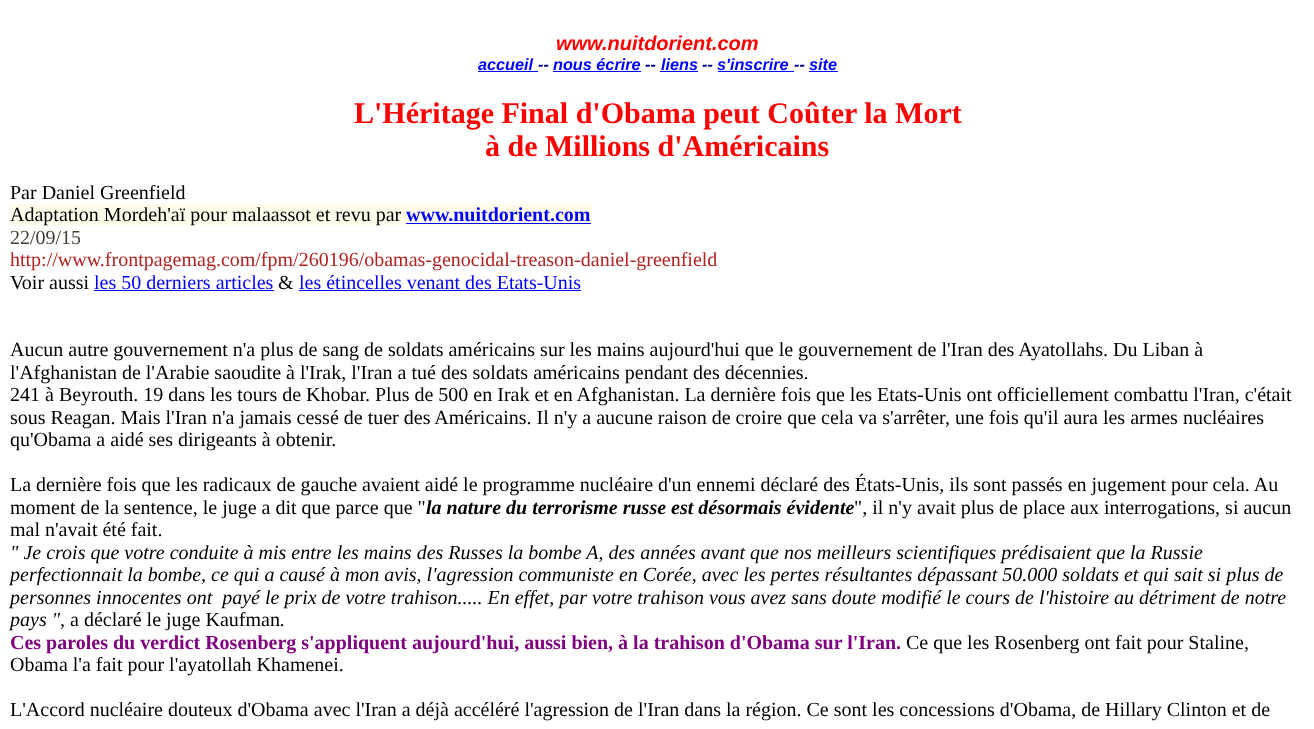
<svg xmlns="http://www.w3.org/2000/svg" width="1314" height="729">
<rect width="100%" height="100%" fill="#fff"/>
<text x="556" y="50" style="font-family:Liberation Sans;font-size:20px;font-weight:bold;font-style:italic;fill:#f00">www.nuitdorient.com</text>
<text x="478" y="70" style="font-family:Liberation Sans;font-size:16.25px;font-weight:bold;font-style:italic;fill:#00f">accueil</text>
<text x="538" y="70" style="font-family:Liberation Sans;font-size:16.25px;font-weight:bold;font-style:italic;fill:#000086">--</text>
<rect x="478" y="71" width="60" height="1" fill="#00f"/>
<text x="553" y="70" style="font-family:Liberation Sans;font-size:16.25px;font-weight:bold;font-style:italic;fill:#00f">nous écrire</text>
<rect x="553" y="71" width="88" height="1" fill="#00f"/>
<text x="645" y="70" style="font-family:Liberation Sans;font-size:16.25px;font-weight:bold;font-style:italic;fill:#000086">--</text>
<text x="661" y="70" style="font-family:Liberation Sans;font-size:16.25px;font-weight:bold;font-style:italic;fill:#00f">liens</text>
<rect x="660" y="71" width="38" height="1" fill="#00f"/>
<text x="702" y="70" style="font-family:Liberation Sans;font-size:16.25px;font-weight:bold;font-style:italic;fill:#000086">--</text>
<text x="717" y="70" style="font-family:Liberation Sans;font-size:16.25px;font-weight:bold;font-style:italic;fill:#00f">s'inscrire</text>
<text x="794" y="70" style="font-family:Liberation Sans;font-size:16.25px;font-weight:bold;font-style:italic;fill:#000086">--</text>
<rect x="718" y="71" width="76" height="1" fill="#00f"/>
<text x="809" y="70" style="font-family:Liberation Sans;font-size:16.25px;font-weight:bold;font-style:italic;fill:#00f">site</text>
<rect x="809" y="71" width="29" height="1" fill="#00f"/>
<text x="354" y="123" style="font-family:Liberation Serif;font-size:30px;font-weight:bold;fill:#f00">L'Héritage Final d'Obama peut Coûter la Mort</text>
<text x="485" y="156" style="font-family:Liberation Serif;font-size:30px;font-weight:bold;fill:#f00">à de Millions d'Américains</text>
<text x="10" y="199" style="font-family:Liberation Serif;font-size:20px;fill:#000">Par Daniel Greenfield</text>
<rect x="10" y="204" width="581" height="21" fill="#fffdea"/>
<text x="10" y="221" style="font-family:Liberation Serif;font-size:20px;fill:#000">Adaptation Mordeh'aï pour malaassot et revu par</text>
<text x="406" y="221" style="font-family:Liberation Serif;font-size:20px;font-weight:bold;fill:#00f">www.nuitdorient.com</text>
<rect x="406" y="223" width="185" height="1" fill="#00f"/>
<text x="10" y="244" style="font-family:Liberation Serif;font-size:20px;fill:#464032">22/09/15</text>
<text x="10" y="266" style="font-family:Liberation Serif;font-size:20px;fill:#b22222">http://www.frontpagemag.com/fpm/260196/obamas-genocidal-treason-daniel-greenfield</text>
<text x="10" y="289" style="font-family:Liberation Serif;font-size:20px;fill:#000">Voir aussi</text>
<text x="94" y="289" style="font-family:Liberation Serif;font-size:20px;fill:#00f">les 50 derniers articles</text>
<rect x="94" y="290" width="180" height="1" fill="#00f"/>
<text x="278" y="289" style="font-family:Liberation Serif;font-size:20px;fill:#000">&amp;</text>
<text x="299" y="289" style="font-family:Liberation Serif;font-size:20px;fill:#00f">les étincelles venant des Etats-Unis</text>
<rect x="299" y="290" width="282" height="1" fill="#00f"/>
<text x="10" y="356" style="font-family:Liberation Serif;font-size:20px;fill:#000">Aucun autre gouvernement n'a plus de sang de soldats américains sur les mains aujourd'hui que le gouvernement de l'Iran des Ayatollahs. Du Liban à</text>
<text x="10" y="379" style="font-family:Liberation Serif;font-size:20px;fill:#000">l'Afghanistan de l'Arabie saoudite à l'Irak, l'Iran a tué des soldats américains pendant des décennies.</text>
<text x="10" y="401" style="font-family:Liberation Serif;font-size:20px;fill:#000">241 à Beyrouth. 19 dans les tours de Khobar</text>
<text x="365" y="401" style="font-family:Liberation Serif;font-size:20px;fill:#000">. Plus de 500 en Irak et en Afghanistan. La dernière fois que les Etats-Unis ont officiellement combattu l'Iran, c'était</text>
<text x="10" y="424" style="font-family:Liberation Serif;font-size:20px;fill:#000">sous Reagan. Mais l'Iran n'a jamais cessé de tuer des Américains. Il n'y a aucune raison de croire que cela va s'arrêter, une fois qu'il aura les armes nucléaires</text>
<text x="10" y="446" style="font-family:Liberation Serif;font-size:20px;fill:#000">qu'Obama a aidé ses dirigeants à obtenir.</text>
<text x="10" y="491" style="font-family:Liberation Serif;font-size:20px;fill:#000">La dernière fois que les radicaux de gauche avaient aidé le programme nucléaire d'un ennemi déclaré des États-Unis, ils sont passés en jugement pour cela. Au</text>
<text x="10" y="514" style="font-family:Liberation Serif;font-size:20px;fill:#000">moment de la sentence, le juge a dit que parce que "</text>
<text x="426" y="514" style="font-family:Liberation Serif;font-size:20px;font-weight:bold;font-style:italic;fill:#000">la nature du terrorisme russe est désormais évidente</text>
<text x="854" y="514" style="font-family:Liberation Serif;font-size:20px;fill:#000">", il n'y avait plus de place aux interrogations, si aucun</text>
<text x="10" y="536" style="font-family:Liberation Serif;font-size:20px;fill:#000">mal n'avait été fait.</text>
<text x="10" y="559" style="font-family:Liberation Serif;font-size:20px;font-style:italic;fill:#000">" Je crois que votre conduite à mis entre les mains des Russes la bombe A, des années avant que nos meilleurs scientifiques prédisaient que la Russie</text>
<text x="10" y="581" style="font-family:Liberation Serif;font-size:20px;font-style:italic;fill:#000">perfectionnait la bombe, ce qui a causé à mon avis, l'agression communiste en Corée, avec les pertes résultantes dépassant 50.000 soldats et qui sait si plus de</text>
<text x="10" y="604" style="font-family:Liberation Serif;font-size:20px;font-style:italic;fill:#000" xml:space="preserve">personnes innocentes ont  payé le prix de votre trahison..... En effet, par votre trahison vous avez sans doute modifié le cours de l'histoire au détriment de notre</text>
<text x="10" y="626" style="font-family:Liberation Serif;font-size:20px;font-style:italic;fill:#000">pays ",</text>
<text x="70" y="626" style="font-family:Liberation Serif;font-size:20px;fill:#000">a déclaré le juge Kaufman</text>
<text x="280" y="626" style="font-family:Liberation Serif;font-size:20px;font-style:italic;fill:#000">.</text>
<text x="10" y="649" style="font-family:Liberation Serif;font-size:20px;font-weight:bold;fill:#800080">Ces paroles du verdict Rosenberg s'appliquent aujourd'hui, aussi bien, à la trahison d'Obama sur l'Iran.</text>
<text x="906" y="649" style="font-family:Liberation Serif;font-size:20px;fill:#000">Ce que les Rosenberg ont fait pour Staline,</text>
<text x="10" y="671" style="font-family:Liberation Serif;font-size:20px;fill:#000">Obama l'a fait pour l'ayatollah Khamenei.</text>
<text x="10" y="716" style="font-family:Liberation Serif;font-size:20px;fill:#000">L'Accord nucléaire douteux d'Obama avec l'Iran a déjà accéléré l'agression de l'Iran dans la région. Ce sont les concessions d'Obama, de Hillary Clinton et de</text>
</svg>
